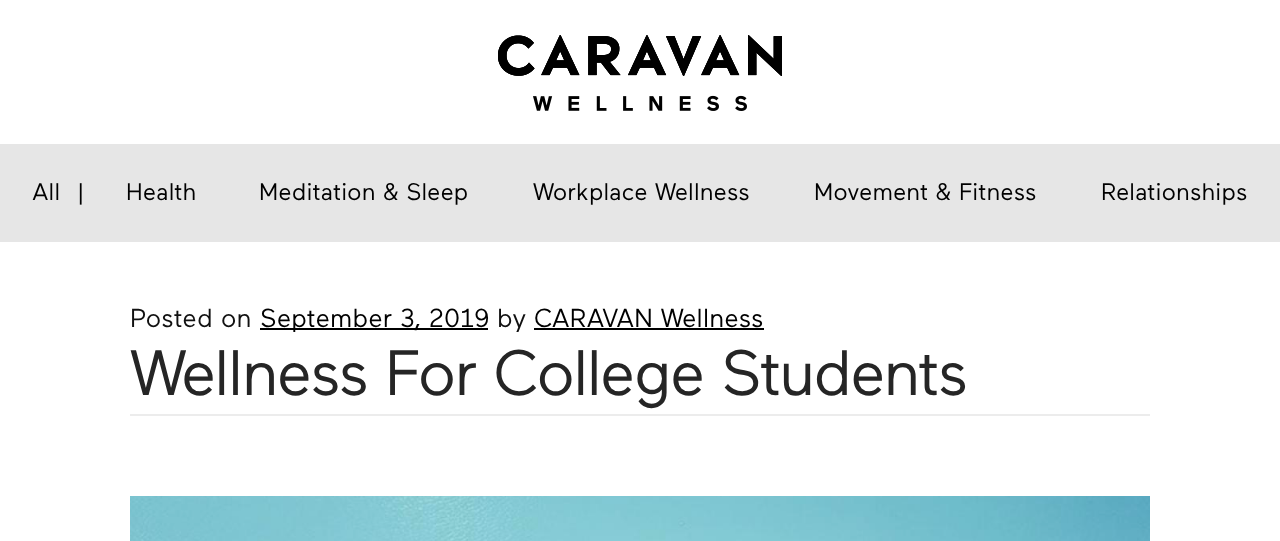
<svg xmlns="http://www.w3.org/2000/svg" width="1280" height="541">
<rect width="100%" height="100%" fill="#fff"/>
<rect x="-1" y="-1" width="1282" height="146" fill="none" stroke="#e6e6e6" stroke-width="2"/>
<image x="498" y="35" width="284" height="76" href="media/1.png"/>
<rect y="146" width="1280" height="96" fill="#e6e6e6"/>
<text x="32" y="200" style="font-family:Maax;font-size:24px;fill:#000">All</text>
<text x="76" y="200" style="font-family:Maax;font-size:24px;fill:#000">|</text>
<text x="126" y="200" style="font-family:Maax;font-size:24px;fill:#000">Health</text>
<text x="259" y="200" style="font-family:Maax;font-size:24px;fill:#000">Meditation &amp; Sleep</text>
<text x="533" y="200" style="font-family:Maax;font-size:24px;fill:#000">Workplace Wellness</text>
<text x="814" y="200" style="font-family:Maax;font-size:24px;fill:#000">Movement &amp; Fitness</text>
<text x="1101" y="200" style="font-family:Maax;font-size:24px;fill:#000">Relationships</text>
<rect x="130" y="414" width="1020" height="2" fill="#ececec"/>
<text x="130" y="327" style="font-family:Maax;font-size:26px;fill:#111">Posted on</text>
<rect x="260" y="328" width="228" height="2" fill="#000"/>
<text x="260" y="327" style="font-family:Maax;font-size:26px;fill:#000">September 3, 2019</text>
<text x="497" y="327" style="font-family:Maax;font-size:26px;fill:#111">by</text>
<text x="534" y="327" style="font-family:Maax;font-size:26px;fill:#000">CARAVAN Wellness</text>
<rect x="534" y="328" width="230" height="2" fill="#000"/>
<text x="130" y="395" style="font-family:Maax;font-size:64px;letter-spacing:-2px;fill:#252525">Wellness For College Students</text>
<image x="130" y="496" width="1020" height="45" href="media/2.png"/>
</svg>
